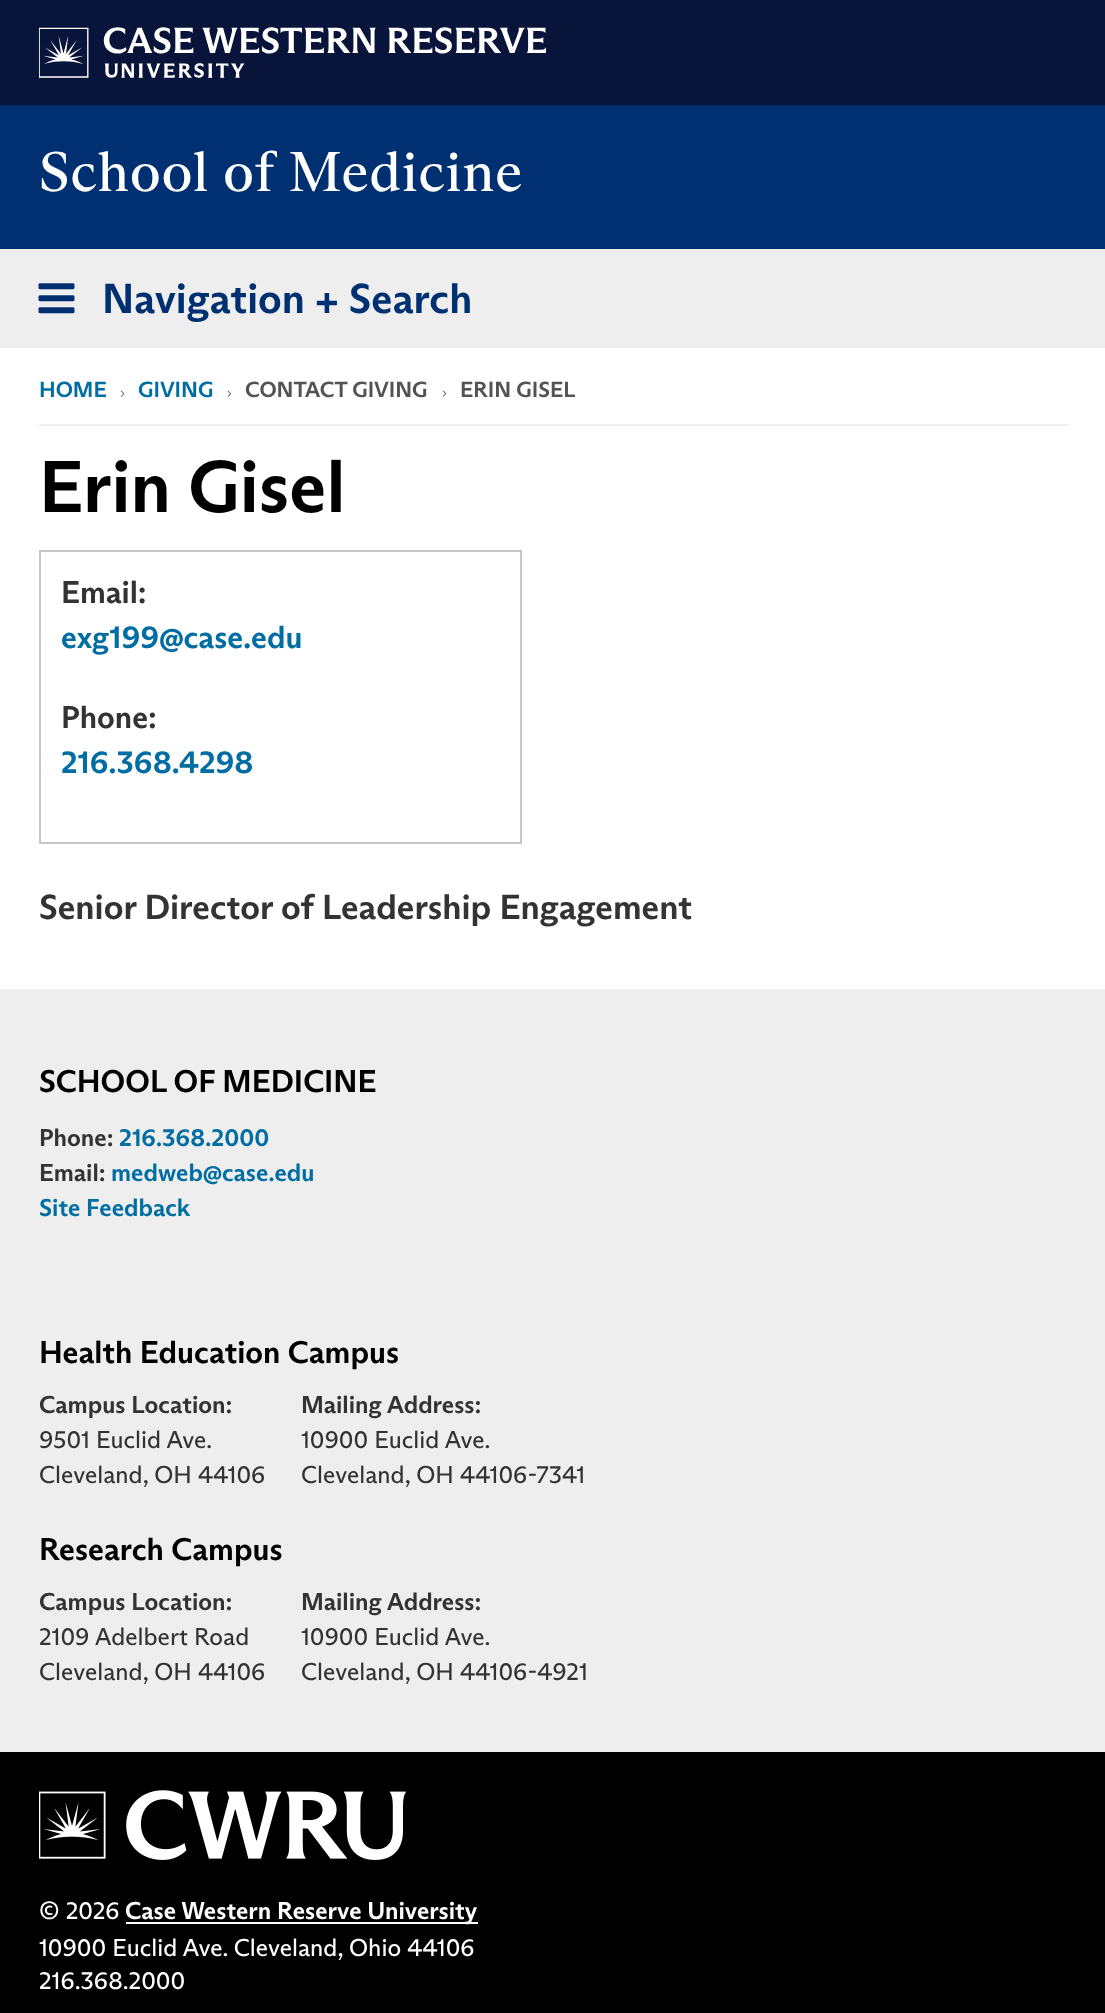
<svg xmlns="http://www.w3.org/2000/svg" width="1105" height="2013">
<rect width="100%" height="100%" fill="#09143a"/>
<image x="39" y="27" width="507" height="51" href="media/1.png"/>
<rect y="105" width="1105" height="144" fill="#003071"/>
<text x="39" y="191" style="font-family:'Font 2';font-size:56px;letter-spacing:0.6px;fill:#fff">School of Medicine</text>
<rect y="249" width="1105" height="99" fill="#eee"/>
<image x="38" y="283" width="37" height="31" href="media/2.png"/>
<text x="102" y="313" style="font-family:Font;font-size:42px;font-weight:bold;fill:#003071">Navigation + Search</text>
<rect y="348" width="1105" height="641" fill="#fff"/>
<rect x="39" y="424" width="1029" height="2" fill="#eee"/>
<text x="39" y="397" style="font-family:Font;font-size:22px;font-weight:bold;fill:#006da3">HOME</text>
<image x="120" y="390" width="5" height="7" href="media/3.png"/>
<text x="138" y="397" style="font-family:Font;font-size:22px;font-weight:bold;fill:#006da3">GIVING</text>
<image x="227" y="390" width="5" height="7" href="media/4.png"/>
<text x="245" y="397" style="font-family:Font;font-size:22px;font-weight:bold;fill:#535353">CONTACT GIVING</text>
<image x="442" y="390" width="5" height="7" href="media/3.png"/>
<text x="460" y="397" style="font-family:Font;font-size:22px;font-weight:bold;fill:#535353">ERIN GISEL</text>
<text x="39" y="512" style="font-family:Font;font-size:73.5px;font-weight:bold;fill:#000">Erin Gisel</text>
<rect x="40" y="551" width="481" height="292" fill="none" stroke="#c6c6c6" stroke-width="2"/>
<text x="61" y="603" style="font-family:Font;font-size:31.5px;font-weight:bold;fill:#333">Email:</text>
<text x="61" y="648" style="font-family:Font;font-size:31.5px;font-weight:bold;fill:#006da3">exg199@case.edu</text>
<text x="61" y="728" style="font-family:Font;font-size:31.5px;font-weight:bold;fill:#333">Phone:</text>
<text x="61" y="773" style="font-family:Font;font-size:31.5px;font-weight:bold;fill:#006da3">216.368.4298</text>
<text x="39" y="919" style="font-family:Font;font-size:35px;font-weight:bold;fill:#333">Senior Director of Leadership Engagement</text>
<rect y="989" width="1105" height="763" fill="#eee"/>
<text x="39" y="1092" style="font-family:Font;font-size:31.5px;font-weight:bold;fill:#000">SCHOOL OF MEDICINE</text>
<text x="39" y="1146" style="font-family:Font;font-size:24.5px;font-weight:bold;fill:#333">Phone:</text>
<text x="119" y="1146" style="font-family:Font;font-size:24.5px;font-weight:bold;fill:#006da3">216.368.2000</text>
<text x="39" y="1181" style="font-family:Font;font-size:24.5px;font-weight:bold;fill:#333">Email:</text>
<text x="111" y="1181" style="font-family:Font;font-size:24.5px;font-weight:bold;fill:#006da3">medweb@case.edu</text>
<text x="39" y="1216" style="font-family:Font;font-size:24.5px;font-weight:bold;fill:#006da3">Site Feedback</text>
<text x="39" y="1363" style="font-family:Font;font-size:31.5px;font-weight:bold;fill:#000">Health Education Campus</text>
<text x="39" y="1413" style="font-family:Font;font-size:24.5px;font-weight:bold;fill:#333">Campus Location:</text>
<text x="39" y="1448" style="font-family:Font;font-size:24.5px;fill:#333">9501 Euclid Ave.</text>
<text x="39" y="1483" style="font-family:Font;font-size:24.5px;fill:#333">Cleveland, OH 44106</text>
<text x="301" y="1413" style="font-family:Font;font-size:24.5px;font-weight:bold;fill:#333">Mailing Address:</text>
<text x="301" y="1448" style="font-family:Font;font-size:24.5px;fill:#333">10900 Euclid Ave.</text>
<text x="301" y="1483" style="font-family:Font;font-size:24.5px;fill:#333">Cleveland, OH 44106-7341</text>
<text x="39" y="1560" style="font-family:Font;font-size:31.5px;font-weight:bold;fill:#000">Research Campus</text>
<text x="39" y="1610" style="font-family:Font;font-size:24.5px;font-weight:bold;fill:#333">Campus Location:</text>
<text x="39" y="1645" style="font-family:Font;font-size:24.5px;fill:#333">2109 Adelbert Road</text>
<text x="39" y="1680" style="font-family:Font;font-size:24.5px;fill:#333">Cleveland, OH 44106</text>
<text x="301" y="1610" style="font-family:Font;font-size:24.5px;font-weight:bold;fill:#333">Mailing Address:</text>
<text x="301" y="1645" style="font-family:Font;font-size:24.5px;fill:#333">10900 Euclid Ave.</text>
<text x="301" y="1680" style="font-family:Font;font-size:24.5px;fill:#333">Cleveland, OH 44106-4921</text>
<rect y="1752" width="1105" height="261" fill="#000"/>
<image x="39" y="1790" width="367" height="70" href="media/5.png"/>
<text x="39" y="1919" style="font-family:Font;font-size:24.5px;fill:#fff">© 2026</text>
<rect x="126" y="1922" width="352" height="2" fill="#fff"/>
<text x="125" y="1919" style="font-family:Font;font-size:24.5px;font-weight:bold;fill:#fff">Case Western Reserve University</text>
<text x="39" y="1956" style="font-family:Font;font-size:24.5px;fill:#fff">10900 Euclid Ave. Cleveland, Ohio 44106</text>
<text x="39" y="1989" style="font-family:Font;font-size:24.5px;fill:#fff">216.368.2000</text>
</svg>
